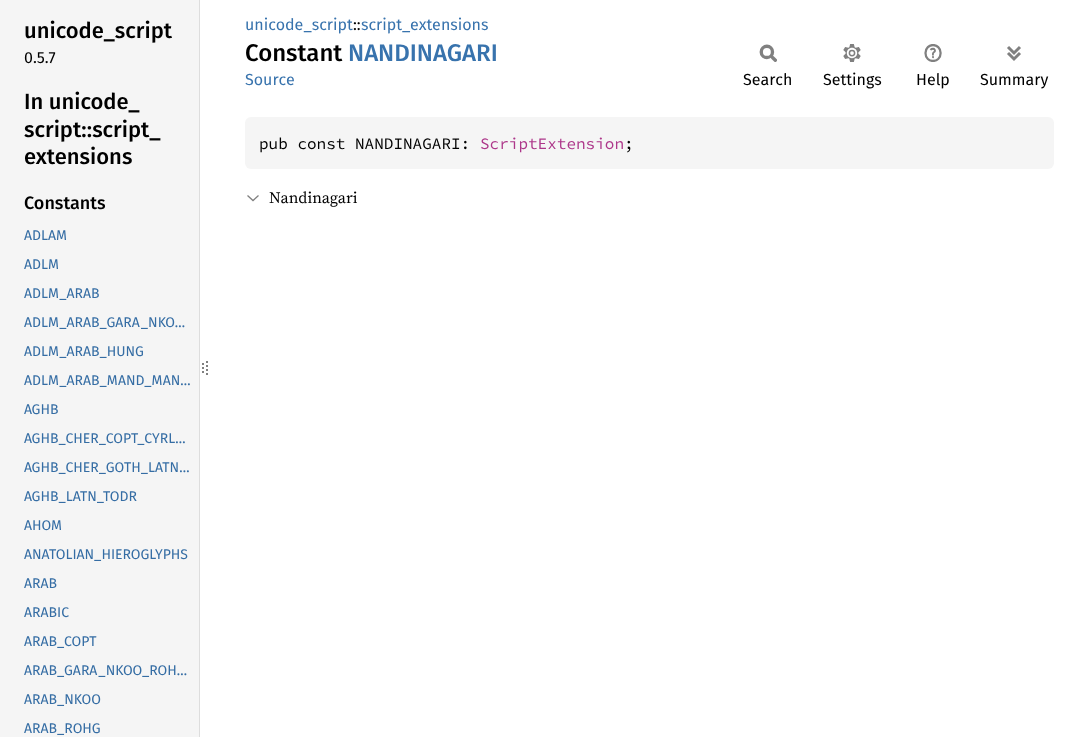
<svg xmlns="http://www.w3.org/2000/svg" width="1069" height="737">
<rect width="100%" height="100%" fill="#fff"/>
<rect width="199" height="737" fill="#f5f5f5"/>
<rect x="199" width="1" height="737" fill="#ddd"/>
<text x="24" y="38" style="font-family:Fira Sans;font-size:22px;font-weight:500;fill:#000">unicode_script</text>
<text x="24" y="63" style="font-family:Fira Sans;font-size:16px;fill:#000">0.5.7</text>
<text x="24" y="109" style="font-family:Fira Sans;font-size:22px;font-weight:500;fill:#000">In unicode_</text>
<text x="24" y="137" style="font-family:Fira Sans;font-size:22px;font-weight:500;fill:#000">script::script_</text>
<text x="24" y="164" style="font-family:Fira Sans;font-size:22px;font-weight:500;fill:#000">extensions</text>
<text x="24" y="209" style="font-family:Fira Sans;font-size:18px;font-weight:500;fill:#000">Constants</text>
<text x="24" y="240" style="font-family:Fira Sans;font-size:14px;fill:#356da4">ADLAM</text>
<text x="24" y="269" style="font-family:Fira Sans;font-size:14px;fill:#356da4">ADLM</text>
<text x="24" y="298" style="font-family:Fira Sans;font-size:14px;fill:#356da4">ADLM_ARAB</text>
<text x="24" y="327" style="font-family:Fira Sans;font-size:14px;fill:#356da4">ADLM_ARAB_GARA_NKO…</text>
<text x="24" y="356" style="font-family:Fira Sans;font-size:14px;fill:#356da4">ADLM_ARAB_HUNG</text>
<text x="24" y="385" style="font-family:Fira Sans;font-size:14px;fill:#356da4">ADLM_ARAB_MAND_MAN…</text>
<text x="24" y="414" style="font-family:Fira Sans;font-size:14px;fill:#356da4">AGHB</text>
<text x="24" y="443" style="font-family:Fira Sans;font-size:14px;fill:#356da4">AGHB_CHER_COPT_CYRL…</text>
<text x="24" y="472" style="font-family:Fira Sans;font-size:14px;fill:#356da4">AGHB_CHER_GOTH_LATN…</text>
<text x="24" y="501" style="font-family:Fira Sans;font-size:14px;fill:#356da4">AGHB_LATN_TODR</text>
<text x="24" y="530" style="font-family:Fira Sans;font-size:14px;fill:#356da4">AHOM</text>
<text x="24" y="559" style="font-family:Fira Sans;font-size:14px;fill:#356da4">ANATOLIAN_HIEROGLYPHS</text>
<text x="24" y="588" style="font-family:Fira Sans;font-size:14px;fill:#356da4">ARAB</text>
<text x="24" y="617" style="font-family:Fira Sans;font-size:14px;fill:#356da4">ARABIC</text>
<text x="24" y="646" style="font-family:Fira Sans;font-size:14px;fill:#356da4">ARAB_COPT</text>
<text x="24" y="675" style="font-family:Fira Sans;font-size:14px;fill:#356da4">ARAB_GARA_NKOO_ROH…</text>
<text x="24" y="704" style="font-family:Fira Sans;font-size:14px;fill:#356da4">ARAB_NKOO</text>
<text x="24" y="733" style="font-family:Fira Sans;font-size:14px;fill:#356da4">ARAB_ROHG</text>
<path d="M203 363v2m0 2v2m0 2v2" fill="none" stroke="#808080" stroke-width="2"/>
<path d="M207 361v16" fill="none" stroke="#808080" stroke-width="2" stroke-dasharray="2 2"/>
<text x="245" y="30" style="font-family:Fira Sans;font-size:16px;fill:#3873ad">unicode_script</text>
<text x="353" y="30" style="font-family:Fira Sans;font-size:16px;fill:#000">::</text>
<text x="361" y="30" style="font-family:Fira Sans;font-size:16px;fill:#3873ad">script_extensions</text>
<text x="245" y="61" style="font-family:Fira Sans;font-size:24px;font-weight:500;fill:#000">Constant</text>
<text x="348" y="61" style="font-family:Fira Sans;font-size:24px;font-weight:500;fill:#3873ad">NANDINAGARI</text>
<text x="245" y="85" style="font-family:Fira Sans;font-size:16px;fill:#3873ad">Source</text>
<image x="759" y="44" width="18" height="18" href="media/1.png"/>
<text x="743" y="85" style="font-family:Fira Sans;font-size:16px;fill:#000">Search</text>
<image x="843" y="44" width="18" height="18" href="media/2.png"/>
<text x="823" y="85" style="font-family:Fira Sans;font-size:16px;fill:#000">Settings</text>
<image x="924" y="44" width="18" height="18" href="media/3.png"/>
<text x="916" y="85" style="font-family:Fira Sans;font-size:16px;fill:#000">Help</text>
<image x="1007" y="46" width="14" height="15" href="media/4.png"/>
<text x="980" y="85" style="font-family:Fira Sans;font-size:16px;fill:#000">Summary</text>
<rect x="245" y="117" width="809" height="52" rx="6" fill="#f5f5f5"/>
<text x="259" y="149" style="font-family:Source Code Pro;font-size:16px;fill:#000">pub const NANDINAGARI:</text>
<text x="480" y="149" style="font-family:Source Code Pro;font-size:16px;fill:#ad378a">ScriptExtension</text>
<text x="624" y="149" style="font-family:Source Code Pro;font-size:16px;fill:#000">;</text>
<path d="M247.5 195.5l5.5 5l5.5-5" fill="none" stroke="#808080" stroke-width="1.3"/>
<text x="269" y="203" style="font-family:'Source Serif 4';font-size:16px;fill:#000">Nandinagari</text>
</svg>
